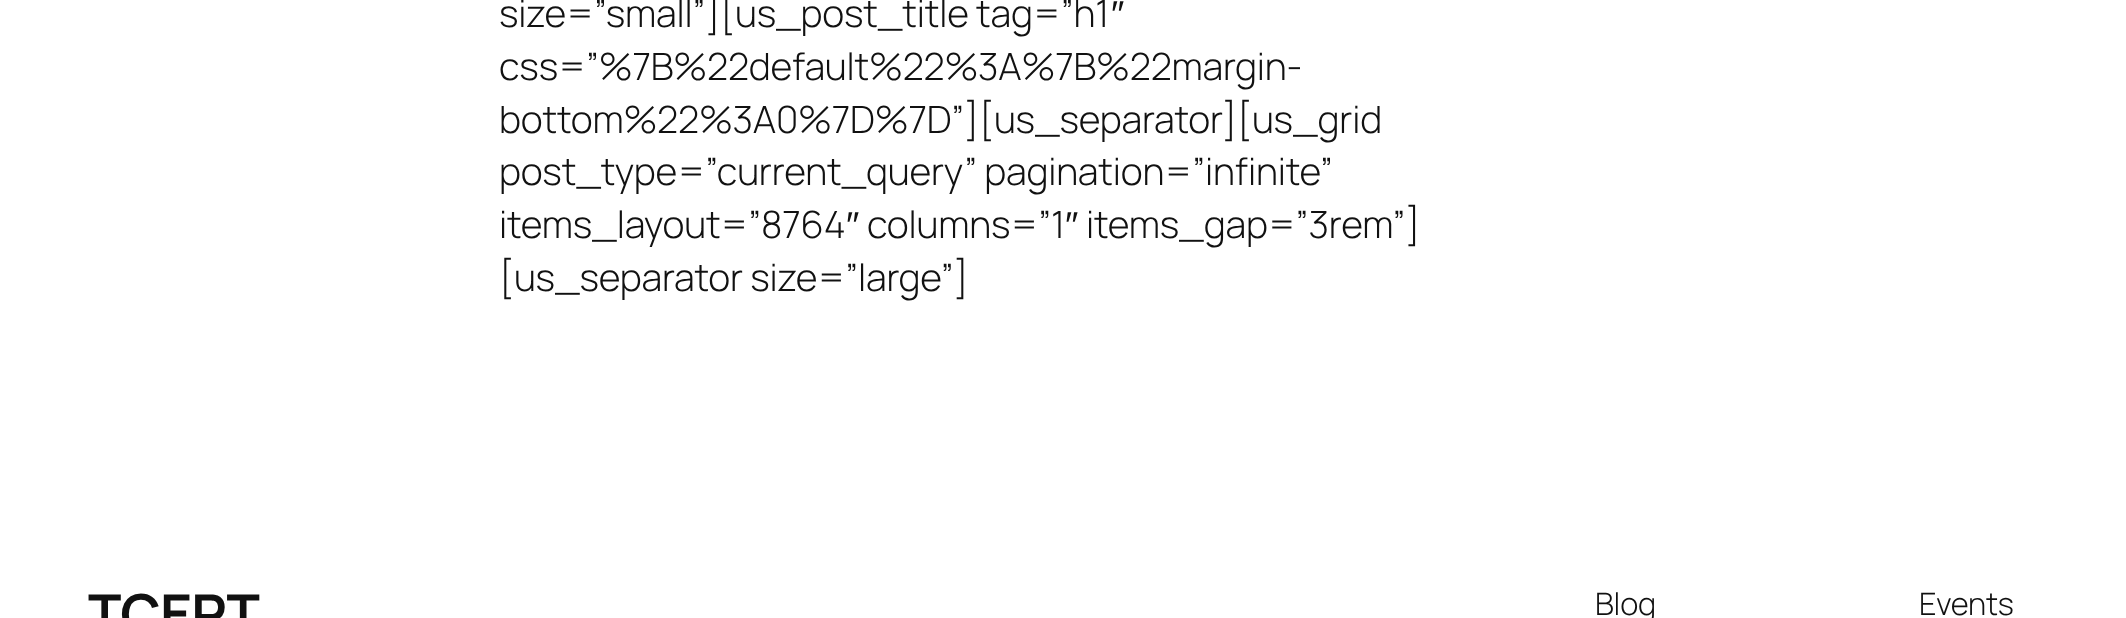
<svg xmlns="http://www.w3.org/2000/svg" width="2126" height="618">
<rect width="100%" height="100%" fill="#fff"/>
<text x="499" y="27" style="font-family:Manrope;font-size:37.6px;font-weight:300;letter-spacing:-0.2px;fill:#111">size=”small”][us_post_title tag=”h1</text>
<text x="1111" y="27" style="font-family:Liberation Sans;font-size:37.6px;letter-spacing:-0.2px;fill:#111">″</text>
<text x="499" y="80" style="font-family:Manrope;font-size:37.6px;font-weight:300;letter-spacing:-0.2px;fill:#111">css=”%7B%22default%22%3A%7B%22margin-</text>
<text x="499" y="133" style="font-family:Manrope;font-size:37.6px;font-weight:300;letter-spacing:-0.2px;fill:#111">bottom%22%3A0%7D%7D”][us_separator][us_grid</text>
<text x="499" y="185" style="font-family:Manrope;font-size:37.6px;font-weight:300;letter-spacing:-0.2px;fill:#111">post_type=”current_query” pagination=”infinite”</text>
<text x="499" y="238" style="font-family:Manrope;font-size:37.6px;font-weight:300;letter-spacing:-0.2px;fill:#111">items_layout=”8764</text>
<text x="846" y="238" style="font-family:Liberation Sans;font-size:37.6px;letter-spacing:-0.2px;fill:#111">″</text>
<text x="867" y="238" style="font-family:Manrope;font-size:37.6px;font-weight:300;letter-spacing:-0.2px;fill:#111">columns=”1</text>
<text x="1065" y="238" style="font-family:Liberation Sans;font-size:37.6px;letter-spacing:-0.2px;fill:#111">″</text>
<text x="1086" y="238" style="font-family:Manrope;font-size:37.6px;font-weight:300;letter-spacing:-0.2px;fill:#111">items_gap=”3rem”]</text>
<text x="499" y="291" style="font-family:Manrope;font-size:37.6px;font-weight:300;letter-spacing:-0.2px;fill:#111">[us_separator size=”large”]</text>
<text x="88" y="634" style="font-family:Manrope;font-size:55px;font-weight:bold;letter-spacing:-1px;fill:#111">TCERT</text>
<text x="1595" y="615" style="font-family:Manrope;font-size:31px;font-weight:300;letter-spacing:-0.2px;fill:#111">Blog</text>
<text x="1919" y="615" style="font-family:Manrope;font-size:31px;font-weight:300;letter-spacing:-0.2px;fill:#111">Events</text>
</svg>
